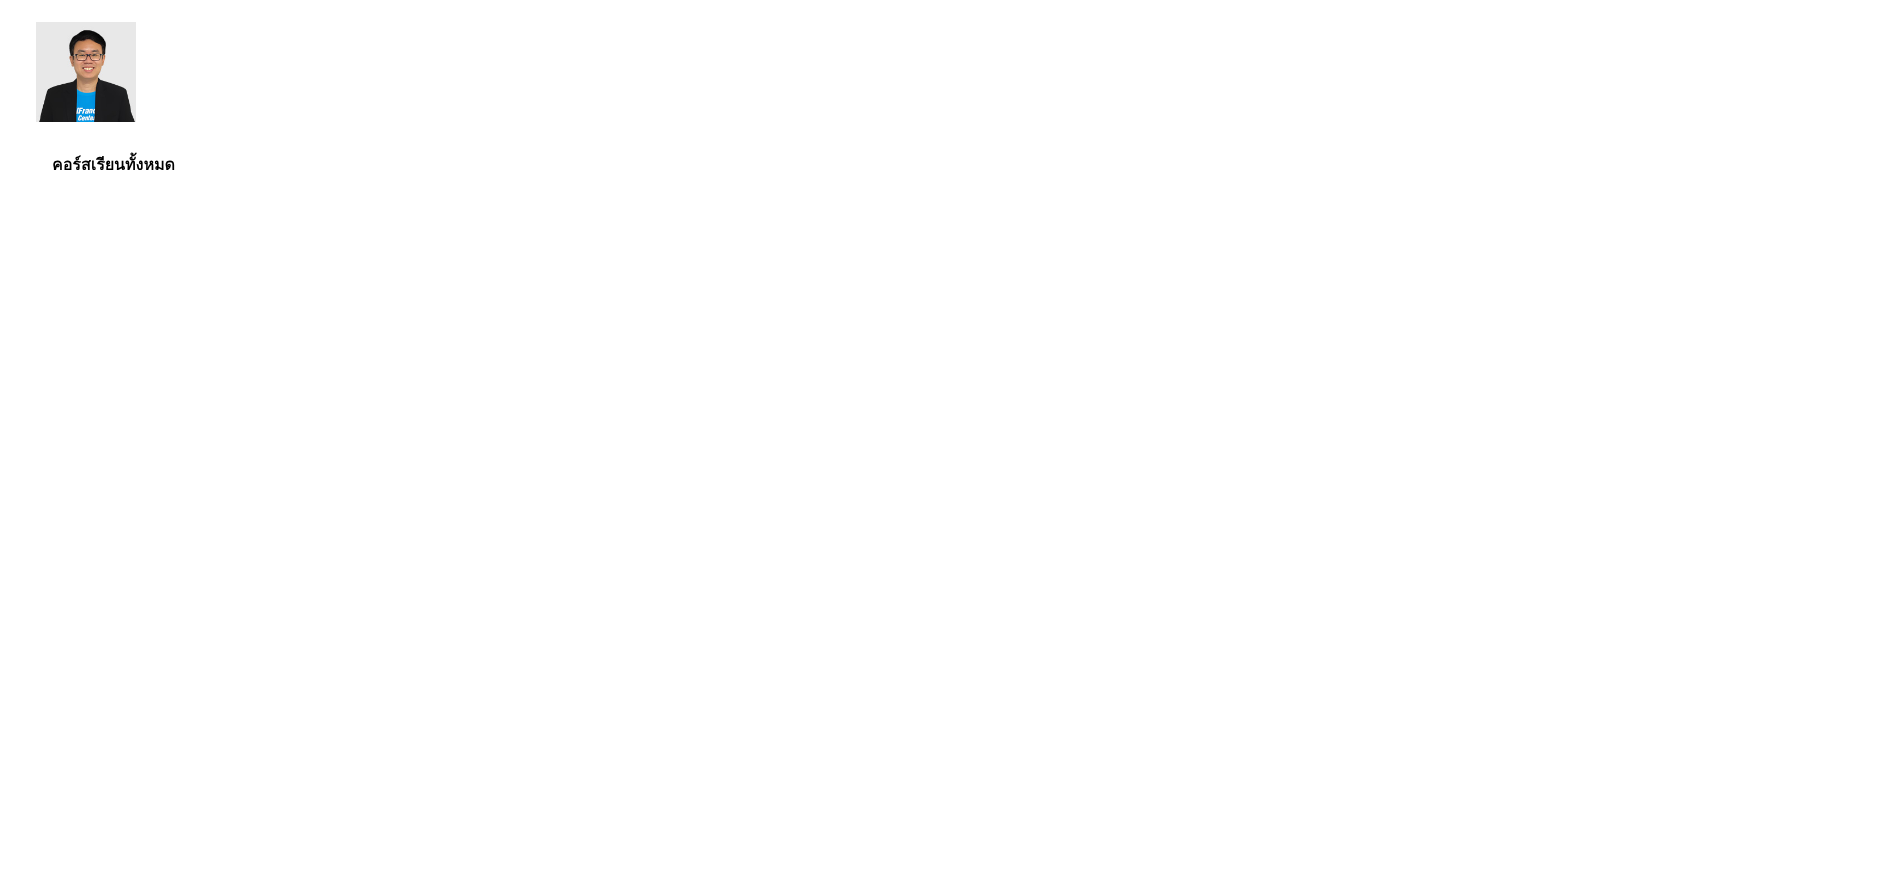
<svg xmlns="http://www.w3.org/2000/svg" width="1902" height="874">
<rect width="100%" height="100%" fill="#fff"/>
<image x="36" y="22" width="100" height="100" href="media/1.png"/>
<text x="52" y="170" style="font-family:Loma;font-size:16px;font-weight:bold;fill:#000">คอร์สเรียนทั้งหมด</text>
</svg>
